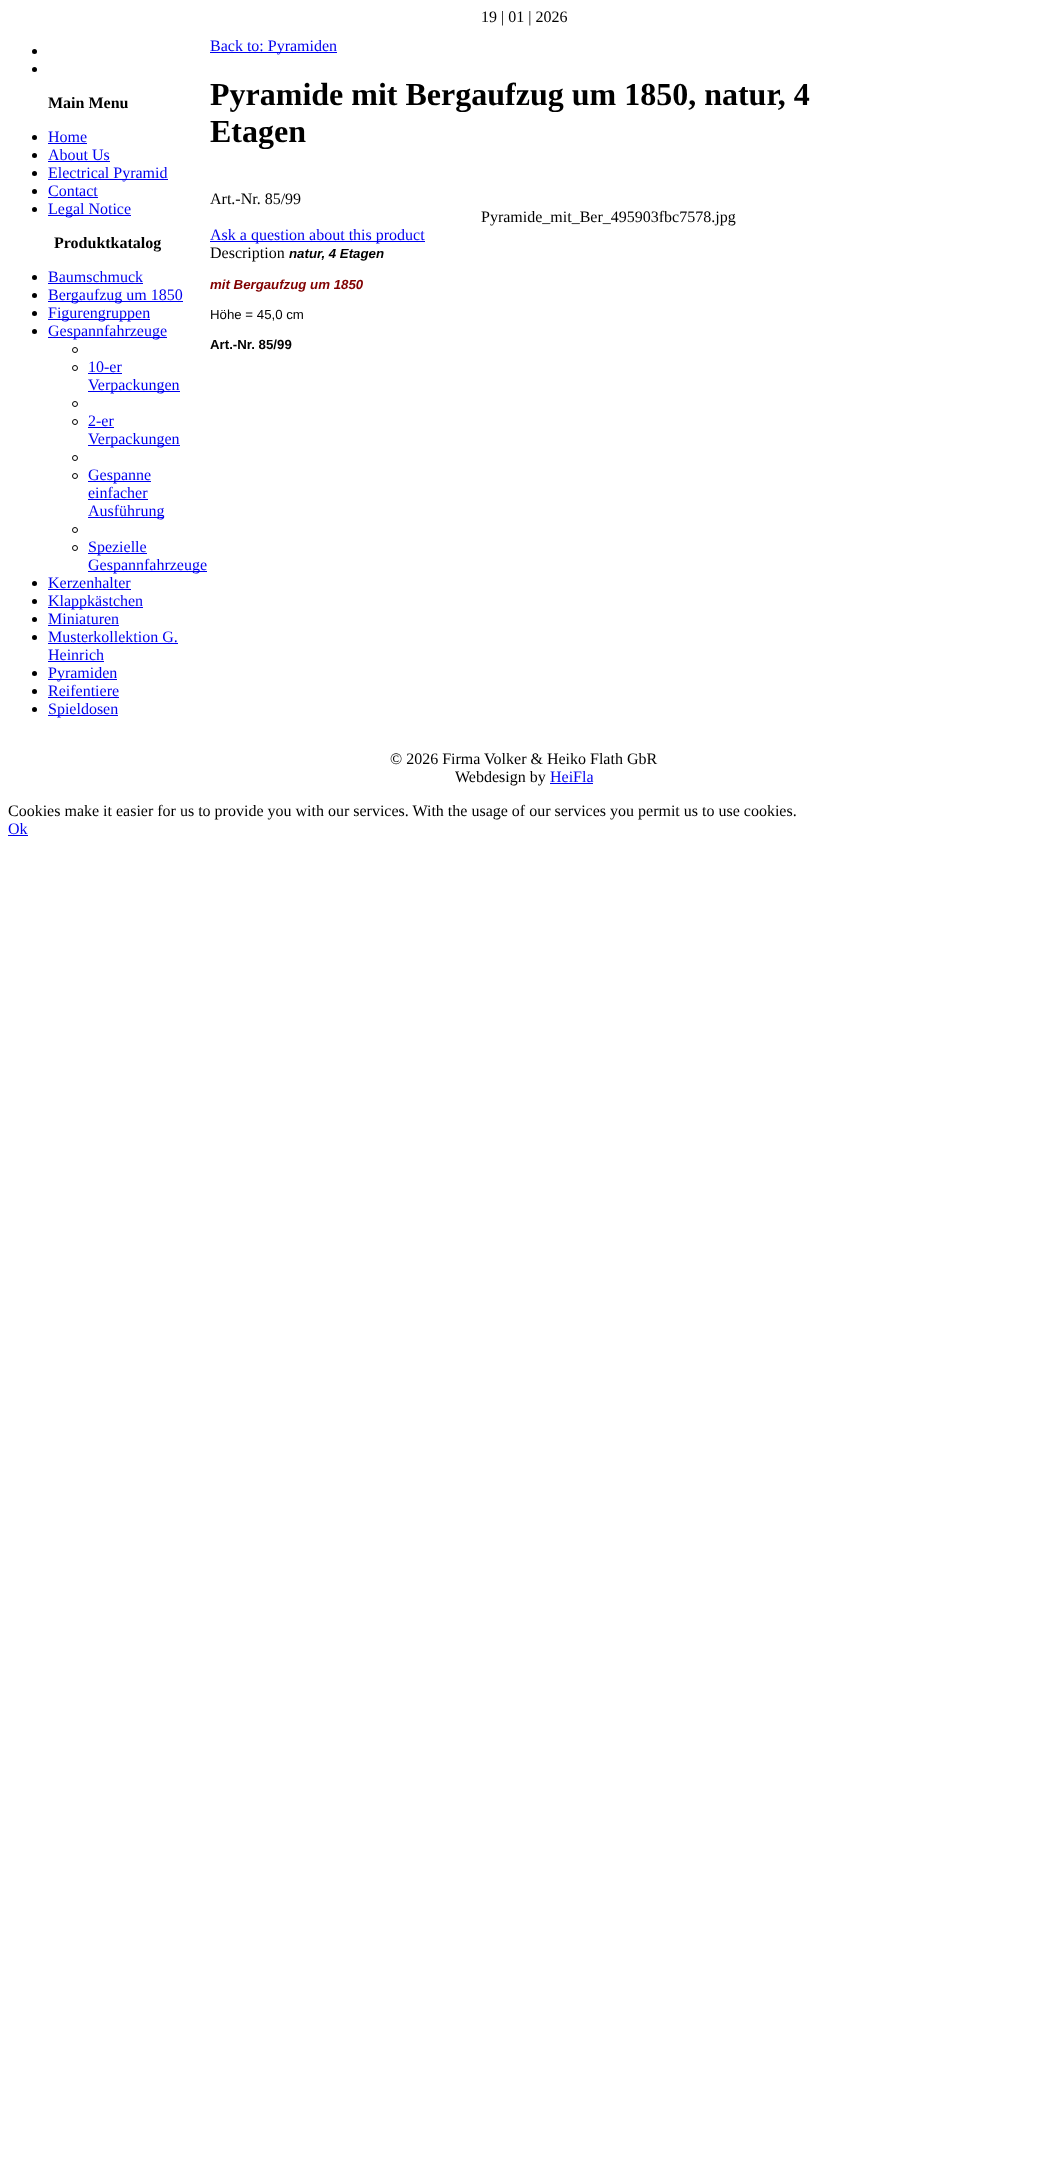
<svg xmlns="http://www.w3.org/2000/svg" width="1048" height="2161">
<rect width="100%" height="100%" fill="#fff"/>
<text x="481" y="22" style="font-family:Liberation Serif;font-size:16px;fill:#000">19 | 01 | 2026</text>
<circle cx="34.5" cy="51.5" r="2.5" fill="#000"/>
<circle cx="34.5" cy="69.5" r="2.5" fill="#000"/>
<text x="48" y="108" style="font-family:Liberation Serif;font-size:16px;font-weight:bold;fill:#000">Main Menu</text>
<circle cx="34.5" cy="137.5" r="2.5" fill="#000"/>
<text x="48" y="142" style="font-family:Liberation Serif;font-size:16px;fill:#00e">Home</text>
<rect x="48" y="143" width="39" height="1" fill="#00e"/>
<circle cx="34.5" cy="155.5" r="2.5" fill="#000"/>
<text x="48" y="160" style="font-family:Liberation Serif;font-size:16px;fill:#00e">About Us</text>
<rect x="48" y="161" width="62" height="1" fill="#00e"/>
<circle cx="34.5" cy="173.5" r="2.5" fill="#000"/>
<rect x="48" y="179" width="120" height="1" fill="#00e"/>
<text x="48" y="178" style="font-family:Liberation Serif;font-size:16px;fill:#00e">Electrical Pyramid</text>
<circle cx="34.5" cy="191.5" r="2.5" fill="#000"/>
<text x="48" y="196" style="font-family:Liberation Serif;font-size:16px;fill:#00e">Contact</text>
<rect x="48" y="197" width="50" height="1" fill="#00e"/>
<circle cx="34.5" cy="209.5" r="2.5" fill="#000"/>
<rect x="48" y="215" width="83" height="1" fill="#00e"/>
<text x="48" y="214" style="font-family:Liberation Serif;font-size:16px;fill:#00e">Legal Notice</text>
<text x="54" y="248" style="font-family:Liberation Serif;font-size:16px;font-weight:bold;fill:#000">Produktkatalog</text>
<circle cx="34.5" cy="277.5" r="2.5" fill="#000"/>
<text x="48" y="282" style="font-family:Liberation Serif;font-size:16px;fill:#00e">Baumschmuck</text>
<rect x="48" y="283" width="95" height="1" fill="#00e"/>
<circle cx="34.5" cy="295.5" r="2.5" fill="#000"/>
<rect x="48" y="301" width="135" height="1" fill="#00e"/>
<text x="48" y="300" style="font-family:Liberation Serif;font-size:16px;fill:#00e">Bergaufzug um 1850</text>
<circle cx="34.5" cy="313.5" r="2.5" fill="#000"/>
<rect x="48" y="319" width="102" height="1" fill="#00e"/>
<text x="48" y="318" style="font-family:Liberation Serif;font-size:16px;fill:#00e">Figurengruppen</text>
<circle cx="34.5" cy="331.5" r="2.5" fill="#000"/>
<rect x="48" y="337" width="119" height="1" fill="#00e"/>
<text x="48" y="336" style="font-family:Liberation Serif;font-size:16px;fill:#00e">Gespannfahrzeuge</text>
<circle cx="75" cy="350" r="2.5" fill="none" stroke="#000"/>
<circle cx="75" cy="368" r="2.5" fill="none" stroke="#000"/>
<text x="88" y="372" style="font-family:Liberation Serif;font-size:16px;fill:#00e">10-er</text>
<rect x="88" y="373" width="34" height="1" fill="#00e"/>
<rect x="88" y="391" width="92" height="1" fill="#00e"/>
<text x="88" y="390" style="font-family:Liberation Serif;font-size:16px;fill:#00e">Verpackungen</text>
<circle cx="75" cy="404" r="2.5" fill="none" stroke="#000"/>
<circle cx="75" cy="422" r="2.5" fill="none" stroke="#000"/>
<text x="88" y="426" style="font-family:Liberation Serif;font-size:16px;fill:#00e">2-er</text>
<rect x="88" y="427" width="26" height="1" fill="#00e"/>
<rect x="88" y="445" width="92" height="1" fill="#00e"/>
<text x="88" y="444" style="font-family:Liberation Serif;font-size:16px;fill:#00e">Verpackungen</text>
<circle cx="75" cy="458" r="2.5" fill="none" stroke="#000"/>
<circle cx="75" cy="476" r="2.5" fill="none" stroke="#000"/>
<rect x="88" y="481" width="63" height="1" fill="#00e"/>
<text x="88" y="480" style="font-family:Liberation Serif;font-size:16px;fill:#00e">Gespanne</text>
<text x="88" y="498" style="font-family:Liberation Serif;font-size:16px;fill:#00e">einfacher</text>
<rect x="88" y="499" width="60" height="1" fill="#00e"/>
<rect x="88" y="517" width="76" height="1" fill="#00e"/>
<text x="88" y="516" style="font-family:Liberation Serif;font-size:16px;fill:#00e">Ausführung</text>
<circle cx="75" cy="530" r="2.5" fill="none" stroke="#000"/>
<circle cx="75" cy="548" r="2.5" fill="none" stroke="#000"/>
<rect x="88" y="553" width="59" height="1" fill="#00e"/>
<text x="88" y="552" style="font-family:Liberation Serif;font-size:16px;fill:#00e">Spezielle</text>
<rect x="88" y="571" width="119" height="1" fill="#00e"/>
<text x="88" y="570" style="font-family:Liberation Serif;font-size:16px;fill:#00e">Gespannfahrzeuge</text>
<circle cx="34.5" cy="583.5" r="2.5" fill="#000"/>
<text x="48" y="588" style="font-family:Liberation Serif;font-size:16px;fill:#00e">Kerzenhalter</text>
<rect x="48" y="589" width="83" height="1" fill="#00e"/>
<circle cx="34.5" cy="601.5" r="2.5" fill="#000"/>
<rect x="48" y="607" width="95" height="1" fill="#00e"/>
<text x="48" y="606" style="font-family:Liberation Serif;font-size:16px;fill:#00e">Klappkästchen</text>
<circle cx="34.5" cy="619.5" r="2.5" fill="#000"/>
<text x="48" y="624" style="font-family:Liberation Serif;font-size:16px;fill:#00e">Miniaturen</text>
<rect x="48" y="625" width="71" height="1" fill="#00e"/>
<circle cx="34.5" cy="637.5" r="2.5" fill="#000"/>
<text x="48" y="642" style="font-family:Liberation Serif;font-size:16px;fill:#00e">Musterkollektion G.</text>
<rect x="48" y="643" width="130" height="1" fill="#00e"/>
<text x="48" y="660" style="font-family:Liberation Serif;font-size:16px;fill:#00e">Heinrich</text>
<rect x="48" y="661" width="56" height="1" fill="#00e"/>
<circle cx="34.5" cy="673.5" r="2.5" fill="#000"/>
<rect x="48" y="679" width="69" height="1" fill="#00e"/>
<text x="48" y="678" style="font-family:Liberation Serif;font-size:16px;fill:#00e">Pyramiden</text>
<circle cx="34.5" cy="691.5" r="2.5" fill="#000"/>
<text x="48" y="696" style="font-family:Liberation Serif;font-size:16px;fill:#00e">Reifentiere</text>
<rect x="48" y="697" width="71" height="1" fill="#00e"/>
<circle cx="34.5" cy="709.5" r="2.5" fill="#000"/>
<rect x="48" y="715" width="70" height="1" fill="#00e"/>
<text x="48" y="714" style="font-family:Liberation Serif;font-size:16px;fill:#00e">Spieldosen</text>
<rect x="210" y="52" width="127" height="1" fill="#00e"/>
<text x="210" y="51" style="font-family:Liberation Serif;font-size:16px;fill:#00e">Back to: Pyramiden</text>
<text x="210" y="105" style="font-family:Liberation Serif;font-size:32px;font-weight:bold;fill:#000">Pyramide mit Bergaufzug um 1850, natur, 4</text>
<text x="210" y="142" style="font-family:Liberation Serif;font-size:32px;font-weight:bold;fill:#000">Etagen</text>
<text x="210" y="204" style="font-family:Liberation Serif;font-size:16px;fill:#000">Art.-Nr. 85/99</text>
<text x="481" y="222" style="font-family:Liberation Serif;font-size:16px;fill:#000">Pyramide_mit_Ber_495903fbc7578.jpg</text>
<rect x="210" y="241" width="215" height="1" fill="#00e"/>
<text x="210" y="240" style="font-family:Liberation Serif;font-size:16px;fill:#00e">Ask a question about this product</text>
<text x="210" y="258" style="font-family:Liberation Serif;font-size:16px;fill:#000">Description</text>
<text x="289" y="258" style="font-family:Liberation Sans;font-size:13.25px;font-weight:bold;font-style:italic;fill:#000">natur, 4 Etagen</text>
<text x="210" y="289" style="font-family:Liberation Sans;font-size:13.25px;font-weight:bold;font-style:italic;fill:#800000">mit Bergaufzug um 1850</text>
<text x="210" y="319" style="font-family:Liberation Sans;font-size:13.25px;fill:#000">Höhe = 45,0 cm</text>
<text x="210" y="349" style="font-family:Liberation Sans;font-size:13.25px;font-weight:bold;fill:#000">Art.-Nr. 85/99</text>
<text x="390" y="764" style="font-family:Liberation Serif;font-size:16px;fill:#000">© 2026 Firma Volker &amp; Heiko Flath GbR</text>
<text x="455" y="782" style="font-family:Liberation Serif;font-size:16px;fill:#000">Webdesign by</text>
<text x="550" y="782" style="font-family:Liberation Serif;font-size:16px;fill:#00e">HeiFla</text>
<rect x="550" y="783" width="43" height="1" fill="#00e"/>
<text x="8" y="816" style="font-family:Liberation Serif;font-size:16px;fill:#000">Cookies make it easier for us to provide you with our services. With the usage of our services you permit us to use cookies.</text>
<text x="8" y="834" style="font-family:Liberation Serif;font-size:16px;fill:#00e">Ok</text>
<rect x="8" y="835" width="20" height="1" fill="#00e"/>
</svg>
